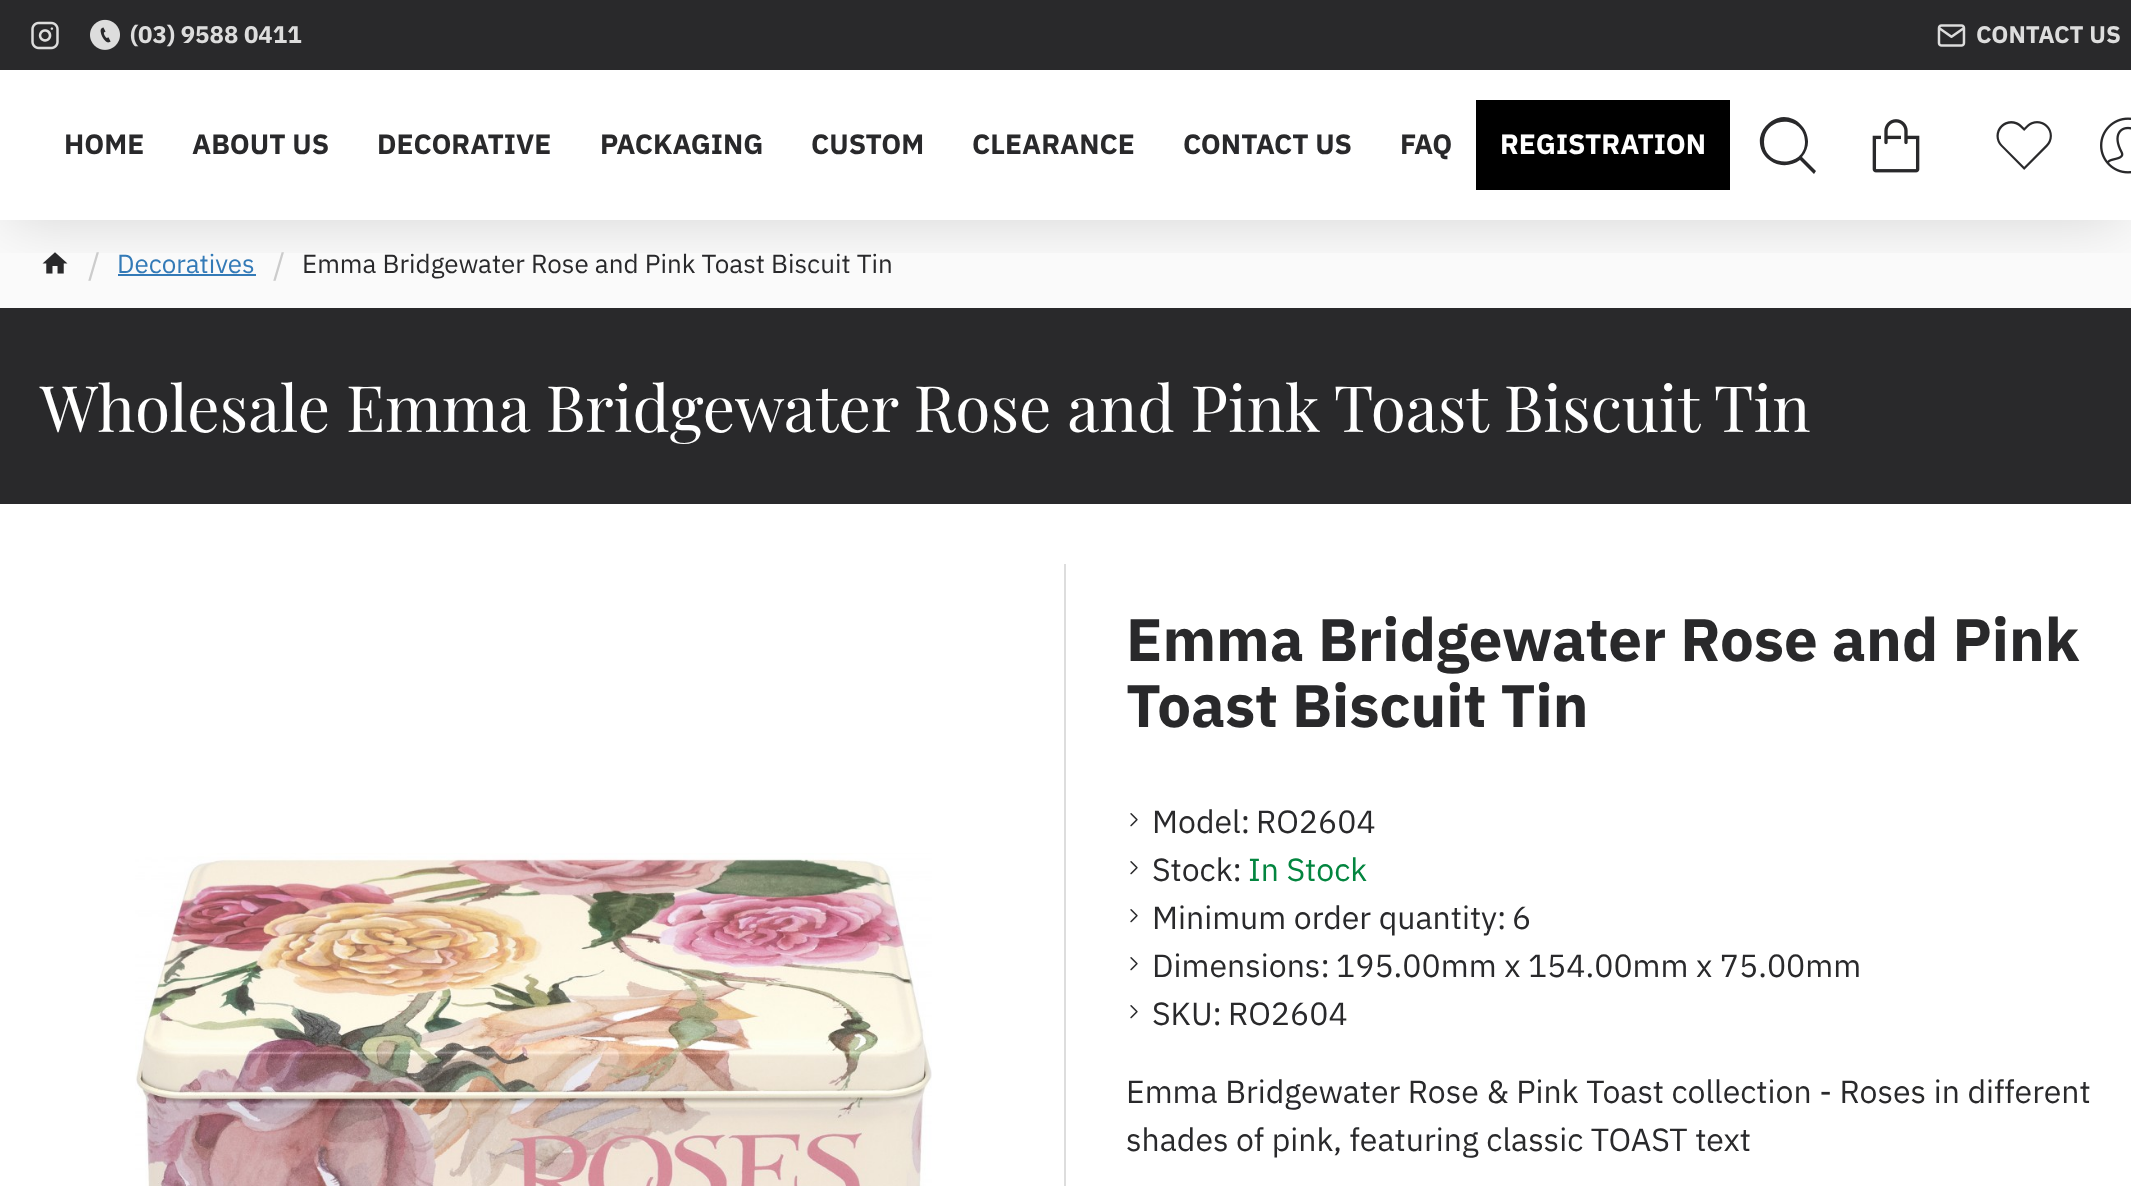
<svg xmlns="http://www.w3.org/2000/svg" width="2131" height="1186">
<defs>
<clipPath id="clip1"><rect x="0" y="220" width="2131" height="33"/></clipPath>
</defs>
<rect width="100%" height="100%" fill="#fff"/>
<rect y="220" width="2131" height="88" fill="#fafafa"/>
<image x="42" y="252" width="26" height="22" href="media/7.png"/>
<rect x="118" y="274" width="138" height="2" fill="#337ab7"/>
<rect y="308" width="2131" height="196" fill="#29292b"/>
<g clip-path="url(#clip1)">
<rect x="10" y="20" width="2112" height="200" fill="#00000026" filter="blur(30px)"/>
</g>
<rect width="2131" height="70" fill="#29292b"/>
<image x="31" y="21" width="28" height="29" href="media/1.png"/>
<image x="90" y="19" width="30" height="31" href="media/2.png"/>
<text x="130" y="43" style="font-family:IBM Plex Sans;font-size:24px;font-weight:bold;fill:#ddd">(03) 9588 0411</text>
<image x="1937" y="24" width="29" height="23" href="media/3.png"/>
<text x="1976" y="43" style="font-family:IBM Plex Sans;font-size:24px;font-weight:bold;fill:#ddd">CONTACT US</text>
<text x="64" y="154" style="font-family:IBM Plex Sans;font-size:28px;font-weight:bold;fill:#29292b">HOME</text>
<text x="192" y="154" style="font-family:IBM Plex Sans;font-size:28px;font-weight:bold;fill:#29292b">ABOUT US</text>
<text x="377" y="154" style="font-family:IBM Plex Sans;font-size:28px;font-weight:bold;fill:#29292b">DECORATIVE</text>
<text x="600" y="154" style="font-family:IBM Plex Sans;font-size:28px;font-weight:bold;fill:#29292b">PACKAGING</text>
<text x="811" y="154" style="font-family:IBM Plex Sans;font-size:28px;font-weight:bold;fill:#29292b">CUSTOM</text>
<text x="972" y="154" style="font-family:IBM Plex Sans;font-size:28px;font-weight:bold;fill:#29292b">CLEARANCE</text>
<text x="1183" y="154" style="font-family:IBM Plex Sans;font-size:28px;font-weight:bold;fill:#29292b">CONTACT US</text>
<text x="1400" y="154" style="font-family:IBM Plex Sans;font-size:28px;font-weight:bold;fill:#29292b">FAQ</text>
<rect x="1476" y="100" width="254" height="90" fill="#000"/>
<text x="1500" y="154" style="font-family:IBM Plex Sans;font-size:28px;font-weight:bold;fill:#fff">REGISTRATION</text>
<path d="M1816 171l-14-14c19-22-11-53-33-34c-5 4-8 9-9 15c-1 8 2 16 8 21c9 8 23 8 32 1l14 14zm-52-29c0-27 41-27 41 0c0 26-41 26-41 0z" fill="#29292b"/>
<image x="1872" y="119" width="48" height="54" href="media/4.png"/>
<image x="1996" y="121" width="56" height="49" href="media/5.png"/>
<image x="2100" y="117" width="31" height="57" href="media/6.png"/>
<text x="88" y="276" style="font-family:IBM Plex Sans;font-size:32px;fill:#ccc">/</text>
<text x="117" y="273" style="font-family:IBM Plex Sans;font-size:26px;fill:#337ab7">Decoratives</text>
<text x="273" y="276" style="font-family:IBM Plex Sans;font-size:32px;fill:#ccc">/</text>
<text x="302" y="273" style="font-family:IBM Plex Sans;font-size:26px;fill:#29292b">Emma Bridgewater Rose and Pink Toast Biscuit Tin</text>
<text x="40" y="432" style="font-family:Playfair Display;font-size:64px;fill:#fff">Wholesale Emma Bridgewater Rose and Pink Toast Biscuit Tin</text>
<rect x="1064" y="564" width="2" height="622" fill="#ddd"/>
<image x="135" y="853" width="797" height="333" href="media/8.png"/>
<text x="1126" y="661" style="font-family:IBM Plex Sans;font-size:60px;font-weight:bold;fill:#29292b">Emma Bridgewater Rose and Pink</text>
<text x="1126" y="727" style="font-family:IBM Plex Sans;font-size:60px;font-weight:bold;fill:#29292b">Toast Biscuit Tin</text>
<image x="1130" y="813" width="8" height="14" href="media/9.png"/>
<text x="1152" y="833" style="font-family:IBM Plex Sans;font-size:32px;fill:#29292b">Model:</text>
<text x="1256" y="833" style="font-family:IBM Plex Sans;font-size:32px;fill:#29292b">RO2604</text>
<image x="1130" y="861" width="8" height="14" href="media/9.png"/>
<text x="1152" y="881" style="font-family:IBM Plex Sans;font-size:32px;fill:#29292b">Stock:</text>
<text x="1248" y="881" style="font-family:IBM Plex Sans;font-size:32px;fill:#03853f">In Stock</text>
<image x="1130" y="909" width="8" height="14" href="media/9.png"/>
<text x="1152" y="929" style="font-family:IBM Plex Sans;font-size:32px;fill:#29292b">Minimum order quantity:</text>
<text x="1512" y="929" style="font-family:IBM Plex Sans;font-size:32px;fill:#29292b">6</text>
<image x="1130" y="957" width="8" height="14" href="media/9.png"/>
<text x="1152" y="977" style="font-family:IBM Plex Sans;font-size:32px;fill:#29292b">Dimensions:</text>
<text x="1336" y="977" style="font-family:IBM Plex Sans;font-size:32px;fill:#29292b">195.00mm x 154.00mm x 75.00mm</text>
<image x="1130" y="1005" width="8" height="14" href="media/9.png"/>
<text x="1152" y="1025" style="font-family:IBM Plex Sans;font-size:32px;fill:#29292b">SKU:</text>
<text x="1228" y="1025" style="font-family:IBM Plex Sans;font-size:32px;fill:#29292b">RO2604</text>
<text x="1126" y="1103" style="font-family:IBM Plex Sans;font-size:32px;fill:#29292b">Emma Bridgewater Rose &amp; Pink Toast collection - Roses in different</text>
<text x="1126" y="1151" style="font-family:IBM Plex Sans;font-size:32px;fill:#29292b">shades of pink, featuring classic TOAST text</text>
</svg>
